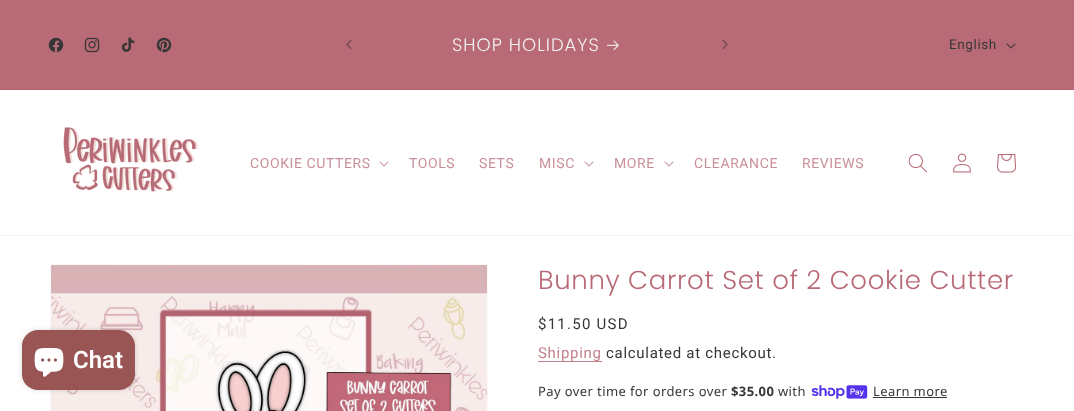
<svg xmlns="http://www.w3.org/2000/svg" width="1074" height="411">
<rect width="100%" height="100%" fill="#fff"/>
<rect width="1074" height="89" fill="#b86b77"/>
<rect y="89" width="1074" height="1" fill="#ae6772"/>
<image x="48" y="37" width="16" height="16" href="media/1.png"/>
<image x="84" y="37" width="16" height="16" href="media/2.png"/>
<image x="121" y="37" width="14" height="15" href="media/3.png"/>
<image x="156" y="37" width="16" height="16" href="media/4.png"/>
<image x="346" y="40" width="6" height="9" href="media/5.png"/>
<text x="452" y="51" style="font-family:Poppins;font-size:18px;font-weight:300;letter-spacing:1px;fill:#f1f1f1">SHOP HOLIDAYS</text>
<image x="607" y="40" width="12" height="11" href="media/6.png"/>
<image x="722" y="40" width="6" height="9" href="media/7.png"/>
<text x="949" y="49" style="font-family:Roboto;font-size:13.5px;letter-spacing:0.6px;fill:#363737">English</text>
<image x="1006" y="43" width="10" height="6" href="media/8.png"/>
<rect y="235" width="1074" height="1" fill="#f9f3f4"/>
<image x="63" y="127" width="135" height="65" href="media/9.png"/>
<text x="250" y="168" style="font-family:Roboto;font-size:14px;letter-spacing:0.6px;fill:#ca9099">COOKIE CUTTERS</text>
<image x="379" y="161" width="10" height="6" href="media/10.png"/>
<text x="409" y="168" style="font-family:Roboto;font-size:14px;letter-spacing:0.6px;fill:#ca9099">TOOLS</text>
<text x="479" y="168" style="font-family:Roboto;font-size:14px;letter-spacing:0.6px;fill:#ca9099">SETS</text>
<text x="539" y="168" style="font-family:Roboto;font-size:14px;letter-spacing:0.6px;fill:#ca9099">MISC</text>
<image x="584" y="161" width="10" height="6" href="media/10.png"/>
<text x="614" y="168" style="font-family:Roboto;font-size:14px;letter-spacing:0.6px;fill:#ca9099">MORE</text>
<image x="664" y="161" width="10" height="6" href="media/10.png"/>
<text x="694" y="168" style="font-family:Roboto;font-size:14px;letter-spacing:0.6px;fill:#ca9099">CLEARANCE</text>
<text x="802" y="168" style="font-family:Roboto;font-size:14px;letter-spacing:0.6px;fill:#ca9099">REVIEWS</text>
<image x="908" y="153" width="19" height="20" href="media/11.png"/>
<image x="953" y="153" width="18" height="20" href="media/12.png"/>
<image x="997" y="154" width="20" height="19" href="media/13.png"/>
<rect x="50.5" y="264.5" width="437" height="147" fill="none" stroke="#fbf8f8"/>
<image x="51" y="265" width="436" height="146" href="media/15.png"/>
<rect x="22" y="330" width="113" height="60" rx="16" fill="#00000026" filter="blur(2.5px)"/>
<rect x="22" y="330" width="113" height="60" rx="16" fill="#995454"/>
<image x="34" y="348" width="30" height="29" href="media/14.png"/>
<text x="73" y="368" style="font-family:Roboto;font-size:24px;font-weight:600;fill:#fff">Chat</text>
<text x="538" y="289" style="font-family:Poppins;font-size:26px;font-weight:300;letter-spacing:0.65px;fill:#b86b77">Bunny Carrot Set of 2 Cookie Cutter</text>
<text x="538" y="329" style="font-family:Roboto;font-size:15px;letter-spacing:1.25px;fill:#363737">$11.50 USD</text>
<rect x="538" y="361" width="64" height="1" fill="#c3818b"/>
<text x="538" y="358" style="font-family:Roboto;font-size:15px;letter-spacing:0.7px;fill:#c3818b">Shipping</text>
<text x="606" y="358" style="font-family:Roboto;font-size:15px;letter-spacing:0.7px;fill:#363737">calculated at checkout.</text>
<text x="538" y="396" style="font-family:Noto Sans;font-size:13px;letter-spacing:0.4px;fill:#363737">Pay over time for orders over</text>
<text x="731" y="396" style="font-family:Noto Sans;font-size:13px;font-weight:bold;letter-spacing:0.4px;fill:#363737">$35.00</text>
<text x="778" y="396" style="font-family:Noto Sans;font-size:13px;letter-spacing:0.4px;fill:#363737">with</text>
<image x="811" y="385" width="57" height="14" href="media/16.png"/>
<text x="873" y="396" style="font-family:Noto Sans;font-size:13px;letter-spacing:0.4px;fill:#363737">Learn more</text>
<rect x="873" y="397" width="74" height="1" fill="#363737"/>
</svg>
